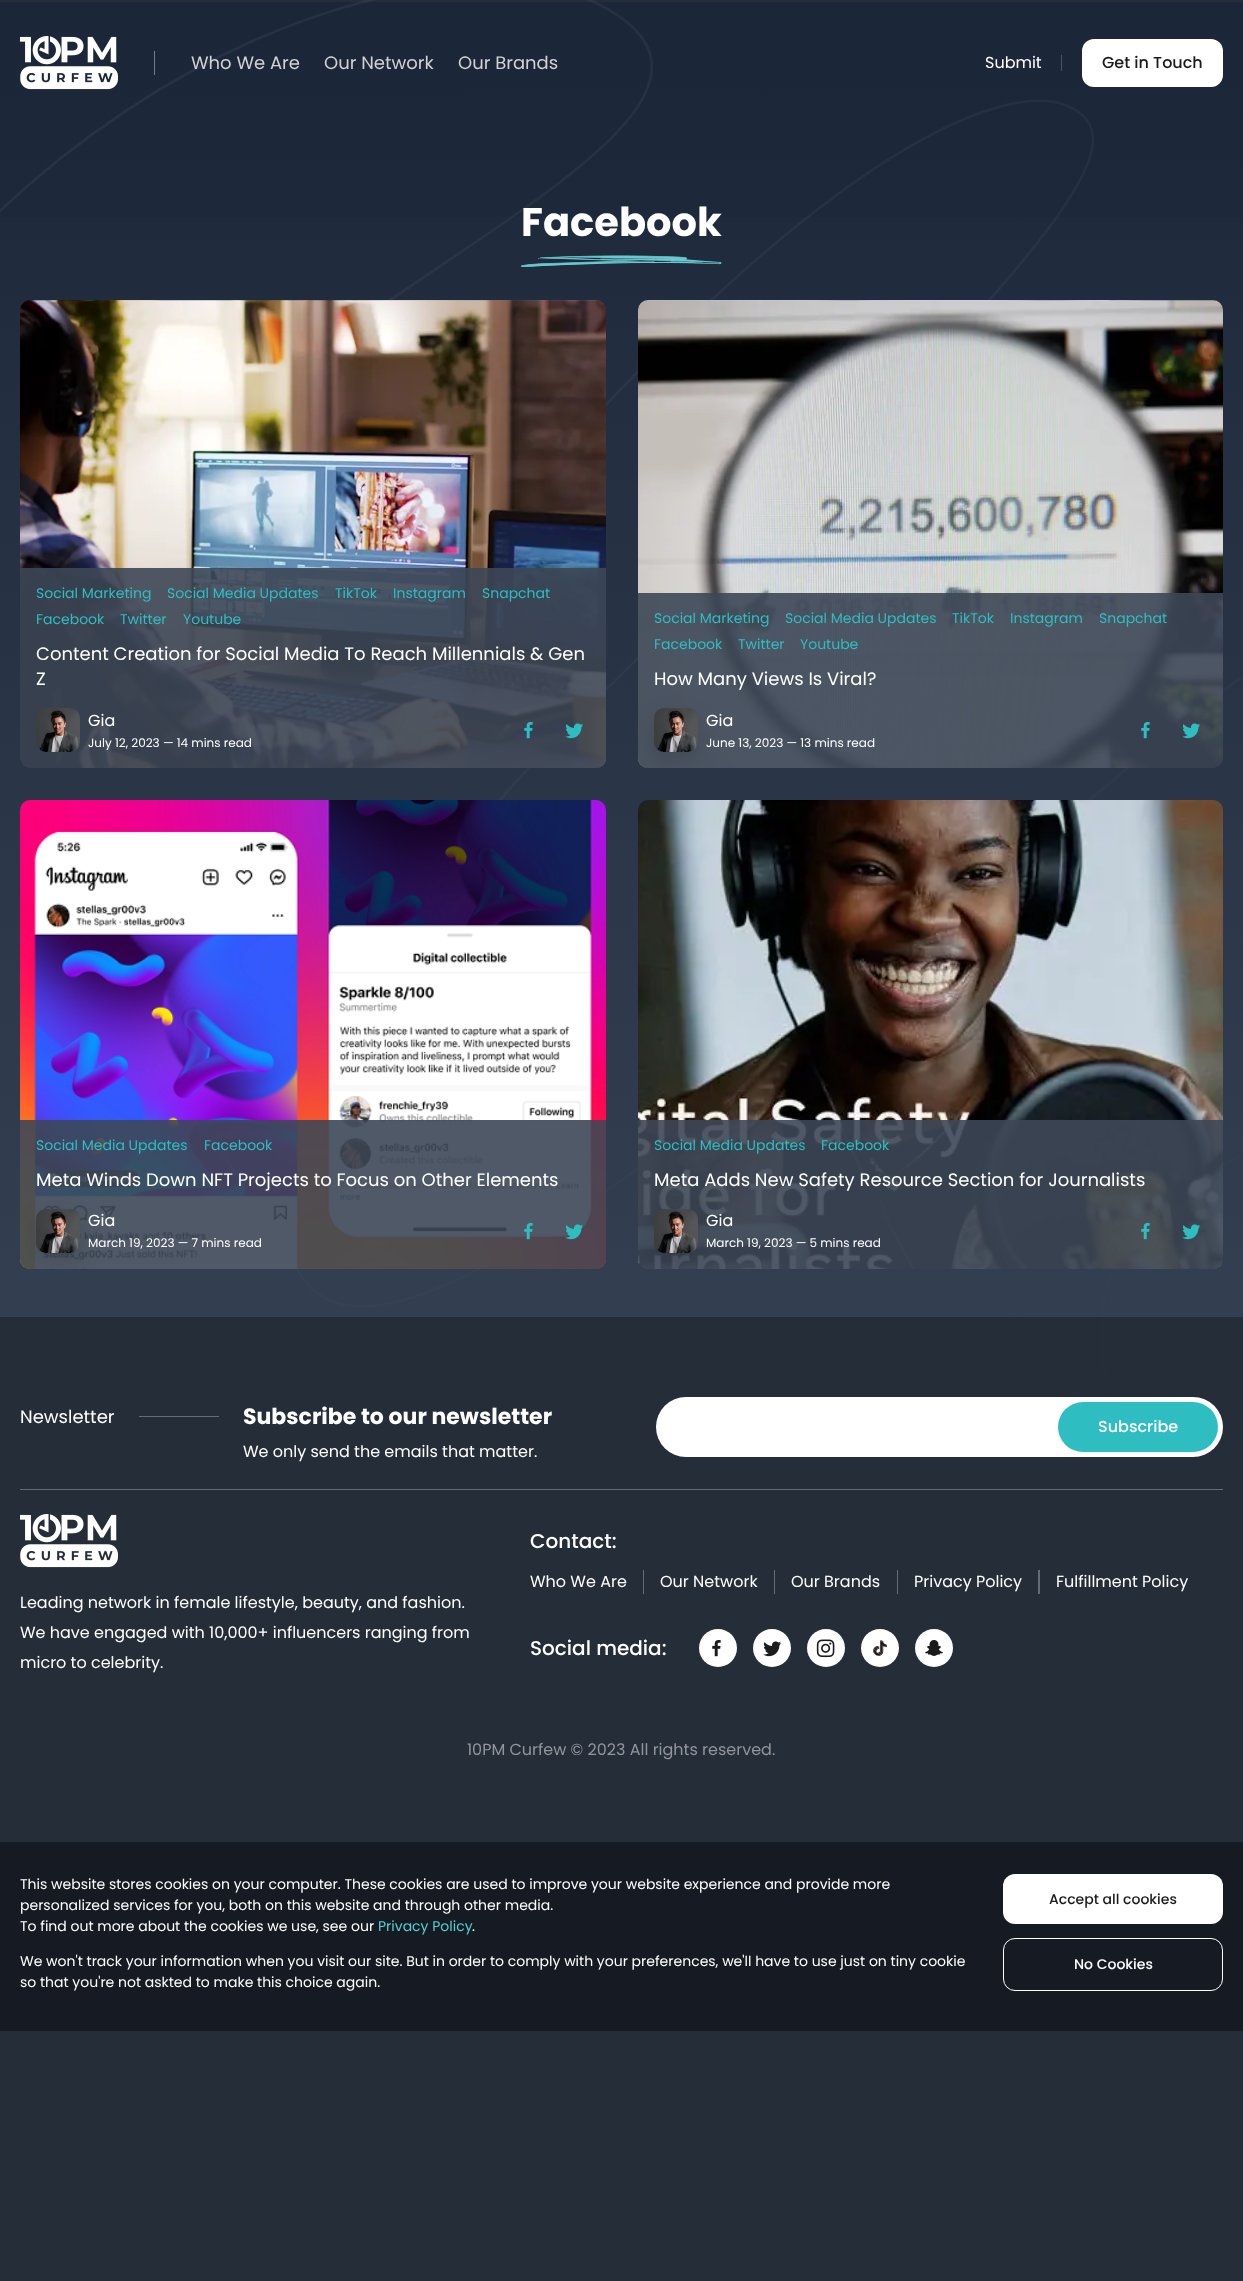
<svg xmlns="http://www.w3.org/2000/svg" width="1243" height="2281">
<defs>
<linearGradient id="g1" gradientUnits="userSpaceOnUse" x1="621" y1="2" x2="622" y2="1317"><stop offset="0" stop-color="#1b2638"/><stop offset="1" stop-color="#25344b"/></linearGradient>
<linearGradient id="g2" gradientUnits="userSpaceOnUse" x1="569" y1="-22" x2="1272" y2="1431"><stop offset="0" stop-color="#fff" stop-opacity="0.05"/><stop offset="1" stop-color="#fff" stop-opacity="0"/></linearGradient>
<linearGradient id="g3" gradientUnits="userSpaceOnUse" x1="622" y1="1317" x2="622" y2="2"><stop offset="0" stop-color="#6b6b6b" stop-opacity="0.2"/><stop offset="1" stop-color="#6b6b6b" stop-opacity="0"/></linearGradient>
<clipPath id="clip1"><rect x="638" y="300" width="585" height="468" rx="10"/></clipPath>
<clipPath id="clip2"><rect x="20" y="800" width="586" height="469" rx="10"/></clipPath>
<clipPath id="clip3"><rect x="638" y="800" width="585" height="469" rx="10"/></clipPath>
</defs>
<rect width="100%" height="100%" fill="#252d39"/>
<rect y="2" width="1243" height="1315" fill="url(#g1)"/>
<path d="M-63 275.5c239-268.5 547-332 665-269.5c231 122-416.5 326.5-416.5 518.5c0 110 160.5 154 416.5-115.5c256-270 405.5-325.5 463-304c87.5 33-18.5 155-482.5 607.5c-241 235-364.5 519-260 584c149 92.5 730-491.5 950-641.5c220-150.5 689.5-56.5 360 268.5c-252 249-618.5 199.5-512 505.5c65.5 188 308.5 161 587.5 0" fill="none" stroke="url(#g2)" stroke-width="2.6"/>
<image x="20" y="36" width="98" height="54" href="media/1.png"/>
<rect x="154" y="51" width="1" height="24" fill="#737d88"/>
<text x="191" y="69" style="font-family:Poppins;font-size:18px;fill:#d2d2d2">Who We Are</text>
<text x="324" y="69" style="font-family:Poppins;font-size:18px;fill:#d2d2d2">Our Network</text>
<text x="458" y="69" style="font-family:Poppins;font-size:18px;fill:#d2d2d2">Our Brands</text>
<text x="985" y="68" style="font-family:Poppins;font-size:16px;fill:#fff">Submit</text>
<rect x="1061" y="55" width="1" height="16" fill="#495361"/>
<rect x="1082" y="39" width="141" height="48" rx="12" fill="#fff"/>
<text x="1102" y="68" style="font-family:Poppins;font-size:16px;font-weight:500;fill:#1b1b1b">Get in Touch</text>
<rect y="217" width="1243" height="1100" fill="url(#g3)"/>
<text x="521" y="236" style="font-family:Poppins;font-size:40px;font-weight:bold;fill:#fff">Facebook</text>
<image x="521" y="255" width="201" height="12" href="media/2.png"/>
<rect x="20" y="300" width="586" height="468" rx="10" fill="#3d475680"/>
<image x="20" y="300" width="586" height="468" href="media/3.png"/>
<path d="M20 568h586v190c0 5.5-4.5 10-10 10h-566c-5.5 0-10-4.5-10-10z" fill="#3d4756e6"/>
<text x="36" y="598" style="font-family:Poppins;font-size:14px;fill:#2ebec1">Social Marketing</text>
<text x="167" y="598" style="font-family:Poppins;font-size:14px;fill:#2ebec1">Social Media Updates</text>
<text x="335" y="598" style="font-family:Poppins;font-size:14px;fill:#2ebec1">TikTok</text>
<text x="393" y="598" style="font-family:Poppins;font-size:14px;fill:#2ebec1">Instagram</text>
<text x="482" y="598" style="font-family:Poppins;font-size:14px;fill:#2ebec1">Snapchat</text>
<text x="36" y="624" style="font-family:Poppins;font-size:14px;fill:#2ebec1">Facebook</text>
<text x="120" y="624" style="font-family:Poppins;font-size:14px;fill:#2ebec1">Twitter</text>
<text x="183" y="624" style="font-family:Poppins;font-size:14px;fill:#2ebec1">Youtube</text>
<text x="36" y="660" style="font-family:Poppins;font-size:18px;fill:#fff">Content Creation for Social Media To Reach Millennials &amp; Gen</text>
<text x="36" y="685" style="font-family:Poppins;font-size:18px;fill:#fff">Z</text>
<rect x="36" y="708" width="44" height="44" rx="10" fill="#3d475680"/>
<image x="36" y="708" width="44" height="44" href="media/4.png"/>
<text x="88" y="726" style="font-family:Poppins;font-size:16px;fill:#fff">Gia</text>
<text x="88" y="747" style="font-family:Poppins;font-size:12px;fill:#fff">July 12, 2023 — 14 mins read</text>
<image x="524" y="722" width="9" height="17" href="media/5.png"/>
<image x="565" y="723" width="18" height="16" href="media/6.png"/>
<rect x="638" y="300" width="585" height="468" rx="10" fill="#3d475680"/>
<image x="638" y="300" width="585" height="468" href="media/7.png"/>
<path d="M638 593h585v165c0 5.5-4.5 10-10 10h-565c-5.5 0-10-4.5-10-10z" fill="#3d4756e6"/>
<text x="654" y="623" style="font-family:Poppins;font-size:14px;fill:#2ebec1">Social Marketing</text>
<text x="785" y="623" style="font-family:Poppins;font-size:14px;fill:#2ebec1">Social Media Updates</text>
<text x="952" y="623" style="font-family:Poppins;font-size:14px;fill:#2ebec1">TikTok</text>
<text x="1010" y="623" style="font-family:Poppins;font-size:14px;fill:#2ebec1">Instagram</text>
<text x="1099" y="623" style="font-family:Poppins;font-size:14px;fill:#2ebec1">Snapchat</text>
<text x="654" y="649" style="font-family:Poppins;font-size:14px;fill:#2ebec1">Facebook</text>
<text x="738" y="649" style="font-family:Poppins;font-size:14px;fill:#2ebec1">Twitter</text>
<text x="800" y="649" style="font-family:Poppins;font-size:14px;fill:#2ebec1">Youtube</text>
<text x="654" y="685" style="font-family:Poppins;font-size:18px;fill:#fff">How Many Views Is Viral?</text>
<g clip-path="url(#clip1)">
<rect x="654" y="716" width="44" height="44" rx="10" fill="#23232333" filter="blur(10px)"/>
</g>
<rect x="654" y="708" width="44" height="44" rx="10" fill="#3d475680"/>
<image x="654" y="708" width="44" height="44" href="media/8.png"/>
<text x="706" y="726" style="font-family:Poppins;font-size:16px;fill:#fff">Gia</text>
<text x="706" y="747" style="font-family:Poppins;font-size:12px;fill:#fff">June 13, 2023 — 13 mins read</text>
<image x="1141" y="722" width="9" height="17" href="media/9.png"/>
<image x="1182" y="723" width="18" height="16" href="media/10.png"/>
<rect x="20" y="800" width="586" height="469" rx="10" fill="#3d475680"/>
<image x="20" y="800" width="586" height="469" href="media/11.png"/>
<path d="M20 1120h586v139c0 5.5-4.5 10-10 10h-566c-5.5 0-10-4.5-10-10z" fill="#3d4756e6"/>
<text x="36" y="1150" style="font-family:Poppins;font-size:14px;fill:#2ebec1">Social Media Updates</text>
<text x="204" y="1150" style="font-family:Poppins;font-size:14px;fill:#2ebec1">Facebook</text>
<text x="36" y="1186" style="font-family:Poppins;font-size:18px;fill:#fff">Meta Winds Down NFT Projects to Focus on Other Elements</text>
<g clip-path="url(#clip2)">
<rect x="36" y="1217" width="44" height="44" rx="10" fill="#23232333" filter="blur(10px)"/>
</g>
<rect x="36" y="1209" width="44" height="44" rx="10" fill="#3d475680"/>
<image x="36" y="1209" width="44" height="44" href="media/12.png"/>
<text x="88" y="1226" style="font-family:Poppins;font-size:16px;fill:#fff">Gia</text>
<text x="88" y="1247" style="font-family:Poppins;font-size:12px;fill:#fff">March 19, 2023 — 7 mins read</text>
<image x="524" y="1223" width="9" height="17" href="media/13.png"/>
<image x="565" y="1224" width="18" height="16" href="media/14.png"/>
<rect x="638" y="800" width="585" height="469" rx="10" fill="#3d475680"/>
<image x="638" y="800" width="585" height="469" href="media/15.png"/>
<path d="M638 1120h585v139c0 5.5-4.5 10-10 10h-565c-5.5 0-10-4.5-10-10z" fill="#3d4756e6"/>
<text x="654" y="1150" style="font-family:Poppins;font-size:14px;fill:#2ebec1">Social Media Updates</text>
<text x="821" y="1150" style="font-family:Poppins;font-size:14px;fill:#2ebec1">Facebook</text>
<text x="654" y="1186" style="font-family:Poppins;font-size:18px;fill:#fff">Meta Adds New Safety Resource Section for Journalists</text>
<g clip-path="url(#clip3)">
<rect x="654" y="1217" width="44" height="44" rx="10" fill="#23232333" filter="blur(10px)"/>
</g>
<rect x="654" y="1209" width="44" height="44" rx="10" fill="#3d475680"/>
<image x="654" y="1209" width="44" height="44" href="media/16.png"/>
<text x="706" y="1226" style="font-family:Poppins;font-size:16px;fill:#fff">Gia</text>
<text x="706" y="1247" style="font-family:Poppins;font-size:12px;fill:#fff">March 19, 2023 — 5 mins read</text>
<image x="1141" y="1223" width="9" height="17" href="media/17.png"/>
<image x="1182" y="1224" width="18" height="16" href="media/18.png"/>
<rect x="20" y="1489" width="1203" height="1" fill="#666c74"/>
<text x="20" y="1423" style="font-family:Poppins;font-size:18px;fill:#fff">Newsletter</text>
<rect x="139" y="1416" width="80" height="1" fill="#666c74"/>
<text x="243" y="1424" style="font-family:Poppins;font-size:22px;font-weight:bold;fill:#fff">Subscribe to our newsletter</text>
<text x="243" y="1457" style="font-family:Poppins;font-size:16px;fill:#fff">We only send the emails that matter.</text>
<rect x="656" y="1397" width="567" height="60" rx="30" fill="#fff"/>
<rect x="1058" y="1402" width="160" height="50" rx="25" fill="#2ebec1"/>
<text x="1098" y="1432" style="font-family:Poppins;font-size:16px;font-weight:500;fill:#fff">Subscribe</text>
<image x="20" y="1514" width="98" height="54" href="media/19.png"/>
<text x="20" y="1608" style="font-family:Poppins;font-size:16px;fill:#fff">Leading network in female lifestyle, beauty, and fashion.</text>
<text x="20" y="1638" style="font-family:Poppins;font-size:16px;fill:#fff">We have engaged with 10,000+ influencers ranging from</text>
<text x="20" y="1668" style="font-family:Poppins;font-size:16px;fill:#fff">micro to celebrity.</text>
<text x="530" y="1548" style="font-family:Poppins;font-size:20px;font-weight:500;fill:#fff">Contact:</text>
<text x="530" y="1587" style="font-family:Poppins;font-size:16px;fill:#fff">Who We Are</text>
<rect x="643" y="1570" width="1" height="24" fill="#666c74"/>
<text x="660" y="1587" style="font-family:Poppins;font-size:16px;fill:#fff">Our Network</text>
<rect x="774" y="1570" width="1" height="24" fill="#666c74"/>
<text x="791" y="1587" style="font-family:Poppins;font-size:16px;fill:#fff">Our Brands</text>
<rect x="897" y="1570" width="1" height="24" fill="#666c74"/>
<text x="914" y="1587" style="font-family:Poppins;font-size:16px;fill:#fff">Privacy Policy</text>
<rect x="1038" y="1570" width="2" height="24" fill="#666c74"/>
<text x="1056" y="1587" style="font-family:Poppins;font-size:16px;fill:#fff">Fulfillment Policy</text>
<text x="530" y="1655" style="font-family:Poppins;font-size:20px;font-weight:500;fill:#fff">Social media:</text>
<circle cx="718" cy="1648" r="19" fill="#fff"/>
<image x="712" y="1640" width="9" height="17" href="media/20.png"/>
<circle cx="772" cy="1648" r="19" fill="#fff"/>
<image x="763" y="1641" width="18" height="16" href="media/21.png"/>
<circle cx="826" cy="1648" r="19" fill="#fff"/>
<image x="816" y="1639" width="19" height="19" href="media/22.png"/>
<circle cx="880" cy="1648" r="19" fill="#fff"/>
<image x="873" y="1640" width="14" height="16" href="media/23.png"/>
<circle cx="934" cy="1648" r="19" fill="#fff"/>
<image x="925" y="1640" width="18" height="16" href="media/24.png"/>
<text x="467" y="1755" style="font-family:Poppins;font-size:16px;fill:#92969c">10PM Curfew © 2023 All rights reserved.</text>
<rect y="1842" width="1243" height="189" fill="#161b23"/>
<text x="20" y="1889" style="font-family:Poppins;font-size:14px;fill:#fff">This website stores cookies on your computer. These cookies are used to improve your website experience and provide more</text>
<text x="20" y="1910" style="font-family:Poppins;font-size:14px;fill:#fff">personalized services for you, both on this website and through other media.</text>
<text x="20" y="1931" style="font-family:Poppins;font-size:14px;fill:#fff">To find out more about the cookies we use, see our</text>
<text x="378" y="1931" style="font-family:Poppins;font-size:14px;fill:#4dd2d5">Privacy Policy</text>
<text x="472" y="1931" style="font-family:Poppins;font-size:14px;fill:#fff">.</text>
<text x="20" y="1966" style="font-family:Poppins;font-size:14px;fill:#fff">We won't track your information when you visit our site. But in order to comply with your preferences, we'll have to use just on tiny cookie</text>
<text x="20" y="1987" style="font-family:Poppins;font-size:14px;fill:#fff">so that you're not askted to make this choice again.</text>
<rect x="1003" y="1874" width="220" height="50" rx="12" fill="#fff"/>
<text x="1049" y="1904" style="font-family:Poppins;font-size:14px;font-weight:500;fill:#1b1b1b">Accept all cookies</text>
<rect x="1003.5" y="1938.5" width="219" height="52" rx="11.5" fill="none" stroke="#fff"/>
<text x="1074" y="1969" style="font-family:Poppins;font-size:14px;font-weight:500;fill:#fff">No Cookies</text>
</svg>
